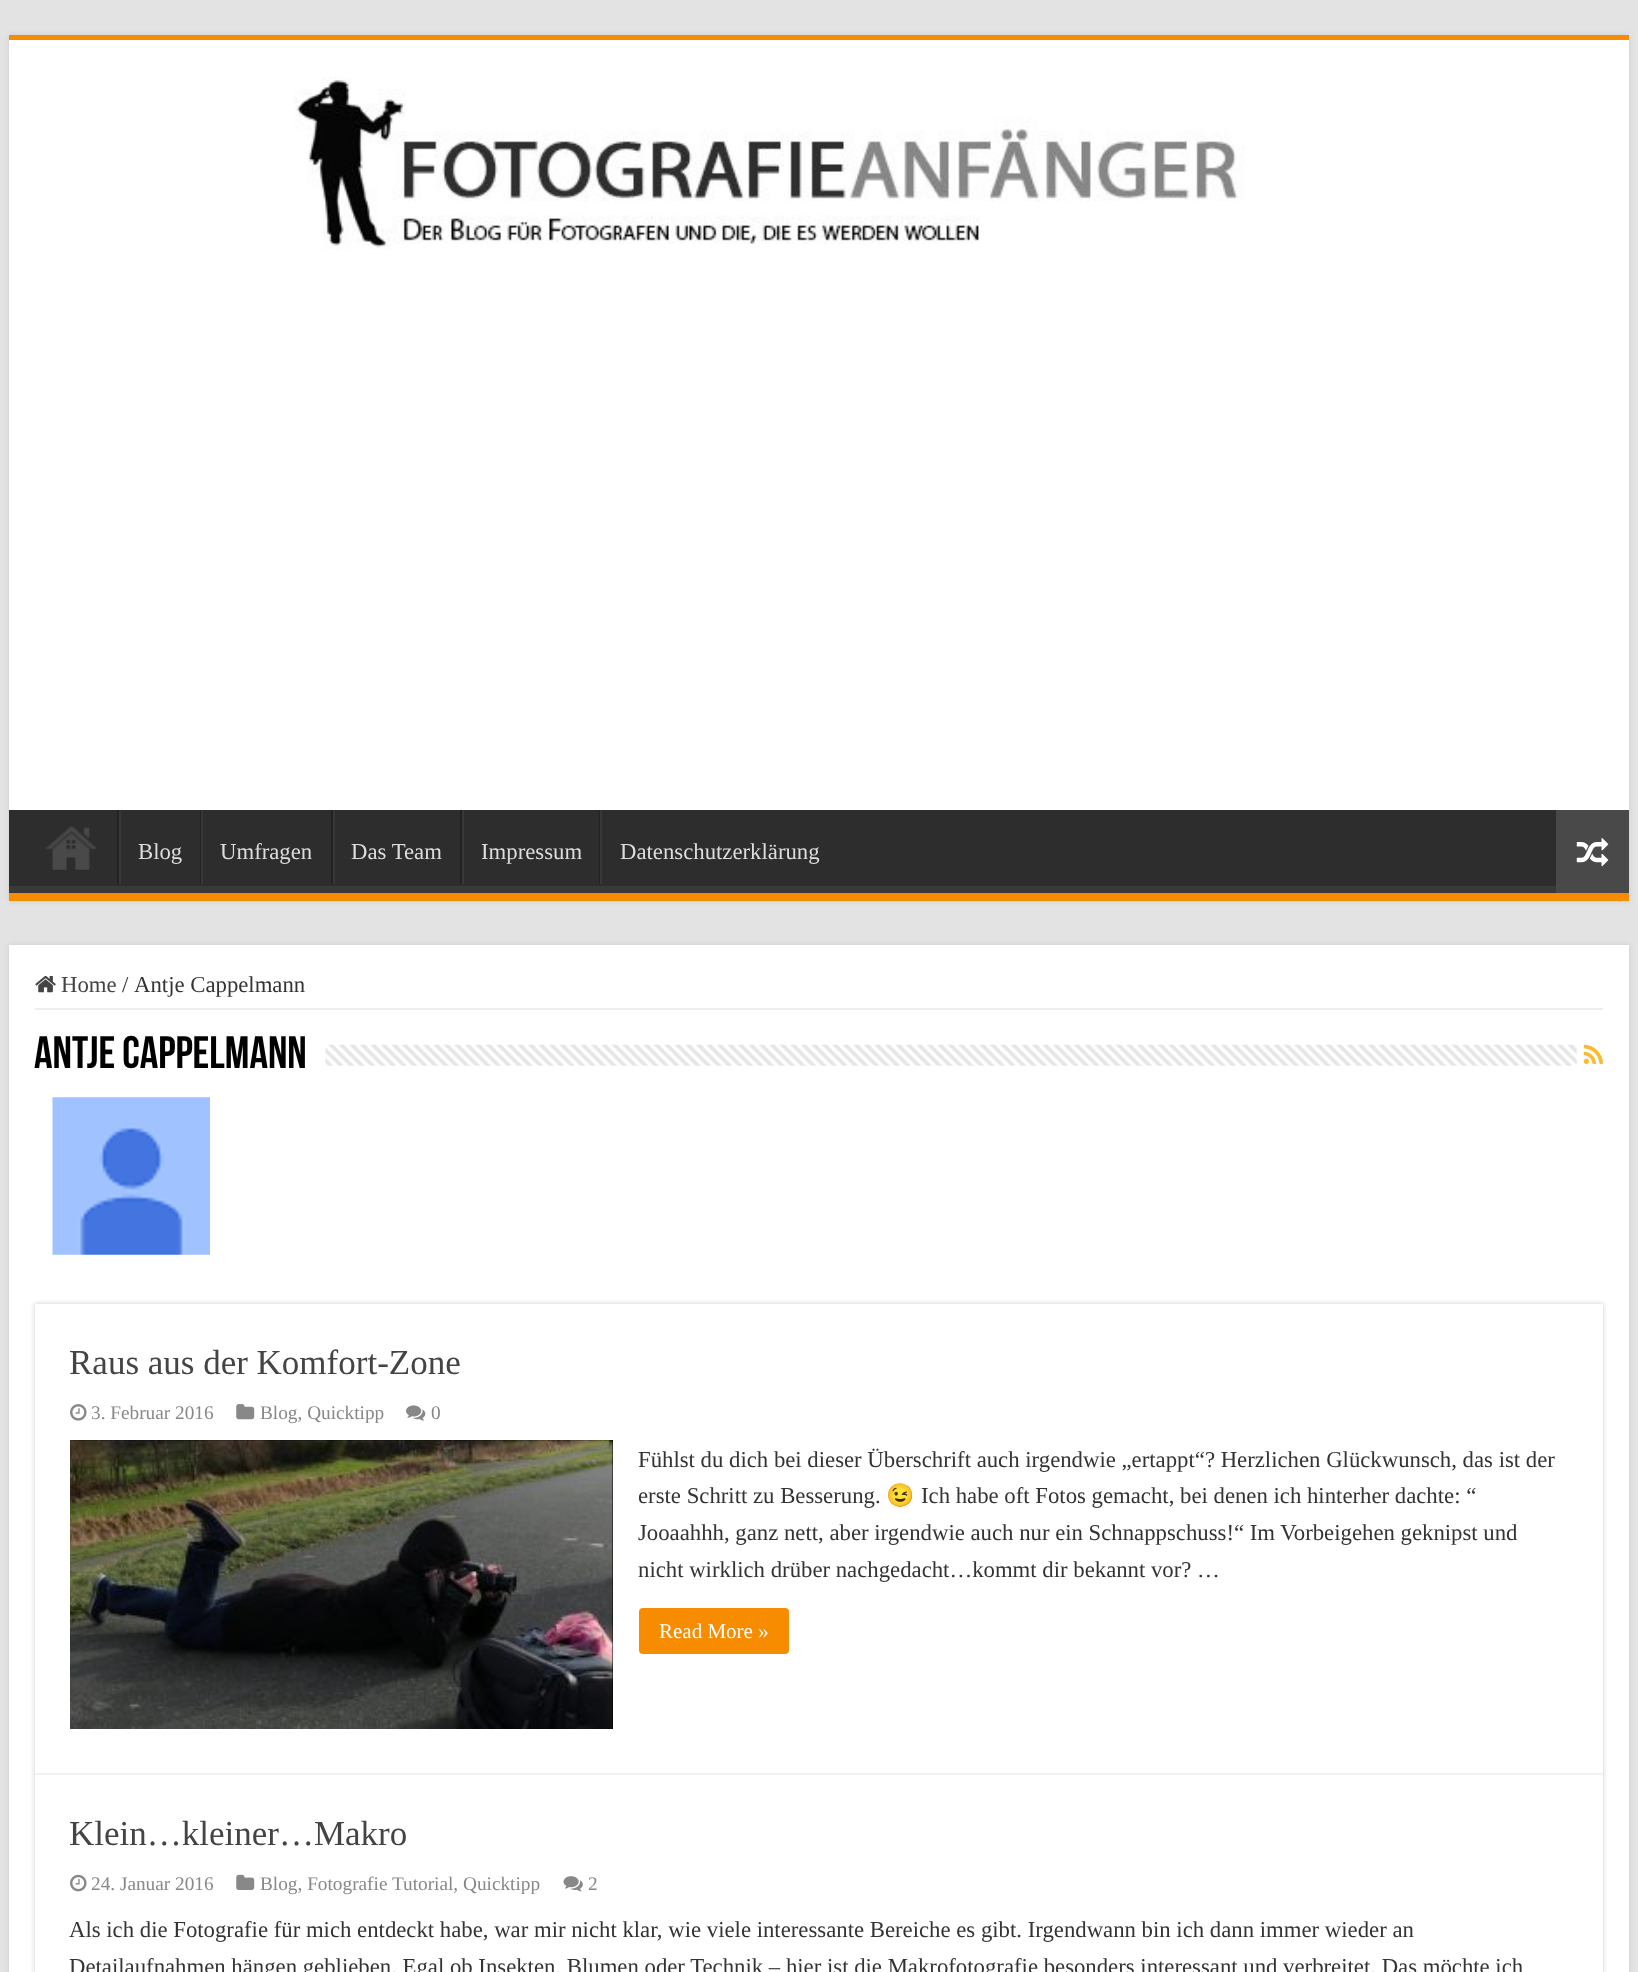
<svg xmlns="http://www.w3.org/2000/svg" width="1638" height="1972">
<defs>
<clipPath id="clip1"><rect x="9" y="810" width="1620" height="83"/></clipPath>
<clipPath id="clip2"><path d="M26 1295h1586v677h-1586zm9 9h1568v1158h-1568z" clip-rule="evenodd"/></clipPath>
</defs>
<rect width="100%" height="100%" fill="#e3e3e3"/>
<rect x="9" y="35" width="1620" height="866" fill="#cacaca" filter="blur(2.5px)"/>
<rect x="9" y="40" width="1620" height="770" fill="#fff"/>
<rect x="9" y="35" width="1620" height="5" fill="#f88c00"/>
<image x="294" y="77" width="950" height="173" href="media/1.png"/>
<rect x="9" y="810" width="1547" height="76" fill="#2d2d2d"/>
<g clip-path="url(#clip1)">
<path d="M-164 637h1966v429h-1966zm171 163h1621c0 0 1 1 1 2v82c0 1-1 2-1 2h-1621c-1 0-2-1-2-2v-82c0-1 1-2 2-2z" fill="#393939" fill-rule="evenodd"/>
</g>
<rect x="9" y="893" width="1620" height="8" fill="#f88c00"/>
<image x="45" y="826" width="52" height="44" href="media/2.png"/>
<rect x="117" y="810" width="2" height="74" fill="#222"/>
<rect x="119" y="810" width="2" height="74" fill="#383838"/>
<text x="138" y="859" style="font-family:Liberation Serif;font-size:22.75px;fill:#ddd">Blog</text>
<rect x="200" y="810" width="1" height="74" fill="#222"/>
<rect x="201" y="810" width="2" height="74" fill="#383838"/>
<text x="220" y="859" style="font-family:Liberation Serif;font-size:22.75px;fill:#ddd">Umfragen</text>
<rect x="331" y="810" width="2" height="74" fill="#222"/>
<rect x="333" y="810" width="2" height="74" fill="#383838"/>
<text x="351" y="859" style="font-family:Liberation Serif;font-size:22.75px;fill:#ddd">Das Team</text>
<rect x="460" y="810" width="2" height="74" fill="#222"/>
<rect x="462" y="810" width="2" height="74" fill="#383838"/>
<text x="481" y="859" style="font-family:Liberation Serif;font-size:22.75px;fill:#ddd">Impressum</text>
<rect x="599" y="810" width="1" height="74" fill="#222"/>
<rect x="600" y="810" width="2" height="74" fill="#383838"/>
<text x="620" y="859" style="font-family:Liberation Serif;font-size:22.75px;fill:#ddd">Datenschutzerklärung</text>
<rect x="1556" y="810" width="73" height="83" fill="#494949"/>
<image x="1576" y="838" width="33" height="29" href="media/3.png"/>
<rect x="9" y="945" width="1620" height="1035" fill="#cacaca" filter="blur(2.5px)"/>
<rect x="9" y="945" width="1620" height="1027" fill="#fff"/>
<rect x="35" y="1008" width="1568" height="2" fill="#eee"/>
<image x="35" y="976" width="21" height="17" href="media/4.png"/>
<text x="61" y="992" style="font-family:Liberation Serif;font-size:22.75px;fill:#444">Home</text>
<text x="122" y="992" style="font-family:Liberation Serif;font-size:22.75px;fill:#333">/</text>
<text x="134" y="992" style="font-family:Liberation Serif;font-size:22.75px;fill:#333">Antje Cappelmann</text>
<text x="34" y="1068" style="font-family:Bebas Neue;font-size:45.5px;font-weight:bold;fill:#000">Antje Cappelmann</text>
<image x="325" y="1044" width="1252" height="22" href="media/5.png"/>
<image x="1583" y="1044" width="20" height="20" href="media/6.png"/>
<image x="52" y="1097" width="158" height="158" href="media/7.png"/>
<g clip-path="url(#clip2)">
<rect x="35" y="1304" width="1568" height="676" fill="#cacaca" filter="blur(2.5px)"/>
</g>
<rect x="35" y="1773" width="1568" height="2" fill="#f2f2f2"/>
<text x="69" y="1374" style="font-family:Liberation Serif;font-size:35px;fill:#444">Raus aus der Komfort-Zone</text>
<image x="70" y="1404" width="17" height="17" href="media/8.png"/>
<text x="91" y="1419" style="font-family:Liberation Serif;font-size:19.3px;fill:#888">3. Februar 2016</text>
<image x="236" y="1404" width="19" height="16" href="media/9.png"/>
<text x="260" y="1419" style="font-family:Liberation Serif;font-size:19.3px;fill:#888">Blog, Quicktipp</text>
<image x="406" y="1405" width="20" height="16" href="media/10.png"/>
<text x="431" y="1419" style="font-family:Liberation Serif;font-size:19.3px;fill:#888">0</text>
<rect x="70" y="1440" width="543" height="289" fill="#000"/>
<image x="70" y="1440" width="543" height="289" href="media/11.png"/>
<text x="638" y="1467" style="font-family:Liberation Serif;font-size:22.75px;fill:#333">Fühlst du dich bei dieser Überschrift auch irgendwie „ertappt“? Herzlichen Glückwunsch, das ist der</text>
<text x="638" y="1503" style="font-family:Liberation Serif;font-size:22.75px;fill:#333">erste Schritt zu Besserung.</text>
<text x="886" y="1503" style="font-family:Noto Color Emoji;font-size:22.75px;fill:#333">😉</text>
<text x="921" y="1503" style="font-family:Liberation Serif;font-size:22.75px;fill:#333">Ich habe oft Fotos gemacht, bei denen ich hinterher dachte: “</text>
<text x="638" y="1540" style="font-family:Liberation Serif;font-size:22.75px;fill:#333">Jooaahhh, ganz nett, aber irgendwie auch nur ein Schnappschuss!“ Im Vorbeigehen geknipst und</text>
<text x="638" y="1577" style="font-family:Liberation Serif;font-size:22.75px;fill:#333">nicht wirklich drüber nachgedacht…kommt dir bekannt vor? …</text>
<rect x="639" y="1608" width="150" height="46" rx="4" fill="#f88c00"/>
<text x="659" y="1638" style="font-family:Liberation Serif;font-size:21px;fill:#fff">Read More »</text>
<text x="69" y="1845" style="font-family:Liberation Serif;font-size:35px;fill:#444">Klein…kleiner…Makro</text>
<image x="70" y="1874" width="17" height="18" href="media/12.png"/>
<text x="91" y="1890" style="font-family:Liberation Serif;font-size:19.3px;fill:#888">24. Januar 2016</text>
<image x="236" y="1874" width="19" height="16" href="media/13.png"/>
<text x="260" y="1890" style="font-family:Liberation Serif;font-size:19.3px;fill:#888">Blog, Fotografie Tutorial, Quicktipp</text>
<image x="563" y="1876" width="20" height="16" href="media/14.png"/>
<text x="588" y="1890" style="font-family:Liberation Serif;font-size:19.3px;fill:#888">2</text>
<text x="69" y="1937" style="font-family:Liberation Serif;font-size:22.75px;fill:#333">Als ich die Fotografie für mich entdeckt habe, war mir nicht klar, wie viele interessante Bereiche es gibt. Irgendwann bin ich dann immer wieder an</text>
<text x="69" y="1974" style="font-family:Liberation Serif;font-size:22.75px;fill:#333">Detailaufnahmen hängen geblieben. Egal ob Insekten, Blumen oder Technik – hier ist die Makrofotografie besonders interessant und verbreitet. Das möchte ich</text>
</svg>
